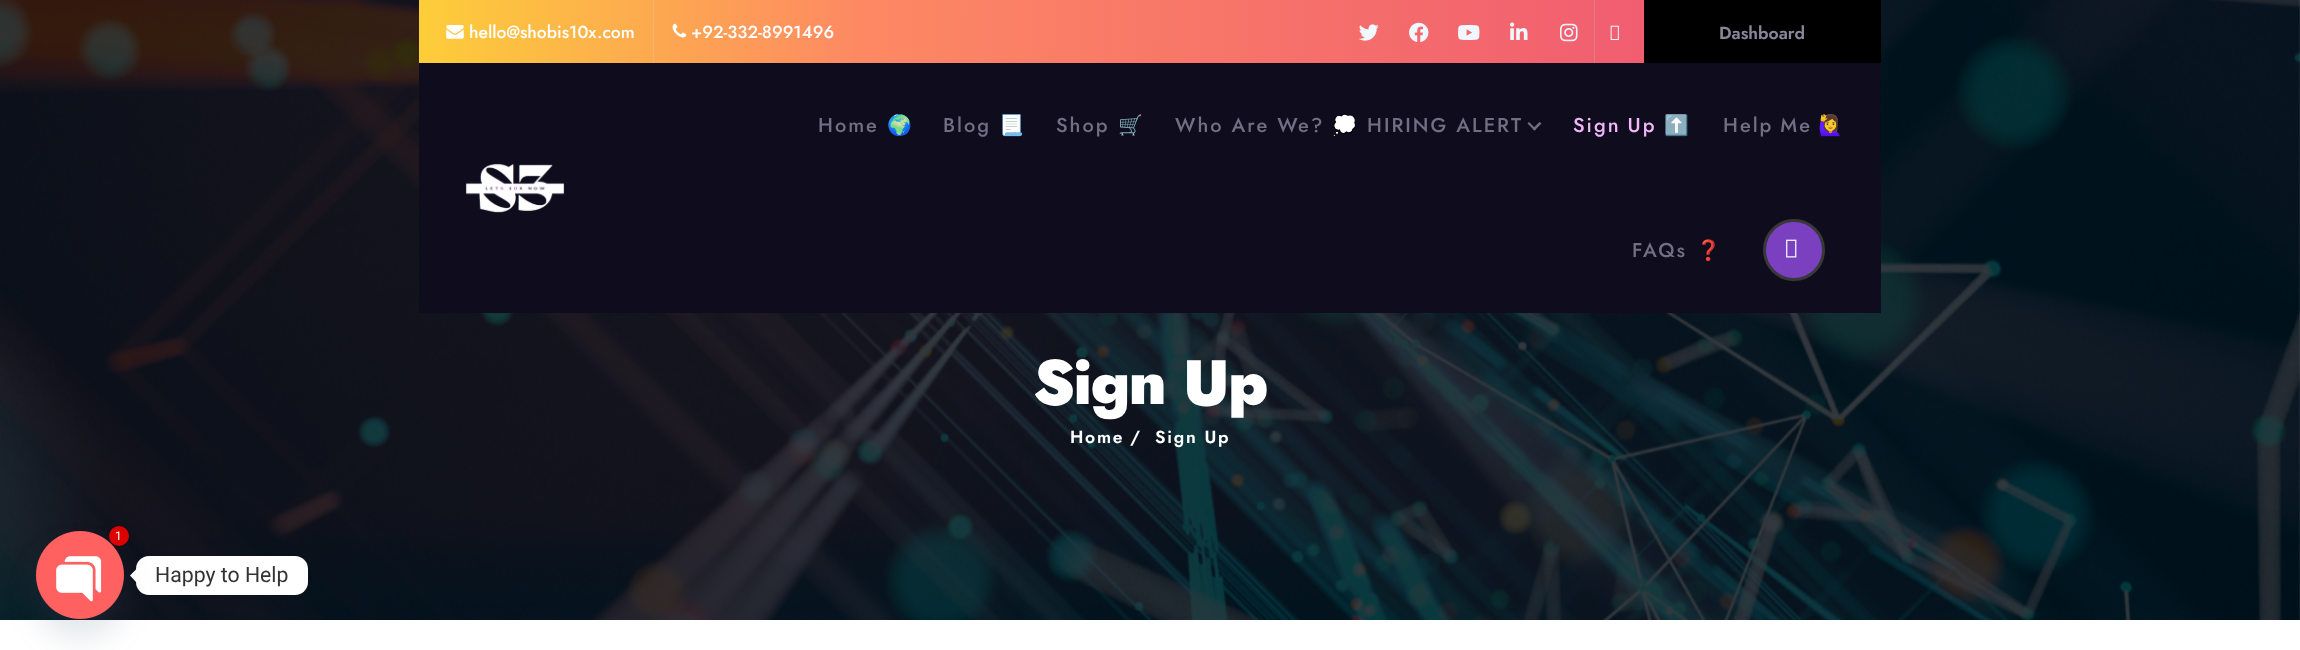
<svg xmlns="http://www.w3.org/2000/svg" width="2300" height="650">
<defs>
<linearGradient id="g1" gradientUnits="userSpaceOnUse" x1="418" y1="19" x2="1882" y2="44"><stop offset="0" stop-color="#fdce39"/><stop offset="0.3" stop-color="#fd8963"/><stop offset="0.99" stop-color="#ed5174"/></linearGradient>
</defs>
<rect width="100%" height="100%" fill="#fff"/>
<image x="0" y="0" width="2300" height="620" href="media/11.png"/>
<rect x="419" width="1225" height="63" fill="url(#g1)"/>
<image x="446" y="25" width="18" height="14" href="media/1.png"/>
<text x="469" y="38" style="font-family:Jost;font-size:17.5px;font-weight:500;fill:#fff">hello@shobis10x.com</text>
<rect x="653" width="1" height="63" fill="#f9b369"/>
<image x="672" y="23" width="15" height="15" href="media/2.png"/>
<text x="691" y="38" style="font-family:Jost;font-size:17.5px;font-weight:500;fill:#fff">+92-332-8991496</text>
<image x="1359" y="24" width="20" height="17" href="media/3.png"/>
<image x="1409" y="22" width="20" height="20" href="media/4.png"/>
<image x="1458" y="25" width="22" height="15" href="media/5.png"/>
<image x="1510" y="22" width="18" height="18" href="media/6.png"/>
<image x="1560" y="23" width="18" height="19" href="media/7.png"/>
<rect x="1594" width="1" height="63" fill="#ef7683"/>
<image x="1610" y="25" width="9" height="15" href="media/8.png"/>
<rect x="1644" width="237" height="63" fill="#000"/>
<text x="1719" y="39" style="font-family:Jost;font-size:17.5px;font-weight:600;fill:#89879a">Dashboard</text>
<rect x="419" y="63" width="1462" height="250" fill="#0f0d1d"/>
<image x="465" y="163" width="100" height="50" href="media/9.png"/>
<text x="818" y="132" style="font-family:Jost;font-size:20px;font-weight:500;letter-spacing:2px;fill:#726f84">Home</text>
<text x="887" y="132" style="font-family:Noto Color Emoji;font-size:20px;letter-spacing:2px;fill:#726f84">🌍</text>
<text x="943" y="132" style="font-family:Jost;font-size:20px;font-weight:500;letter-spacing:2px;fill:#726f84">Blog</text>
<text x="999" y="132" style="font-family:Noto Color Emoji;font-size:20px;letter-spacing:2px;fill:#726f84">📃</text>
<text x="1056" y="132" style="font-family:Jost;font-size:20px;font-weight:500;letter-spacing:2px;fill:#726f84">Shop</text>
<text x="1118" y="132" style="font-family:Noto Color Emoji;font-size:20px;letter-spacing:2px;fill:#726f84">🛒</text>
<text x="1175" y="132" style="font-family:Jost;font-size:20px;font-weight:500;letter-spacing:2px;fill:#726f84">Who Are We?</text>
<text x="1332" y="132" style="font-family:Noto Color Emoji;font-size:20px;letter-spacing:2px;fill:#726f84">💭</text>
<text x="1367" y="132" style="font-family:Jost;font-size:20px;font-weight:500;letter-spacing:2px;fill:#726f84">HIRING ALERT</text>
<path d="M1527.5 123.5l1.5-1.5l7 7l-1.5 1.5z" fill="#726f84"/>
<path d="M1532.5 129l7-7l2 1.5l-7 7z" fill="#726f84"/>
<text x="1573" y="132" word-spacing="-1" style="font-family:Jost;font-size:20px;font-weight:500;letter-spacing:2px;fill:#f3b8fa">Sign Up</text>
<text x="1664" y="132" style="font-family:Noto Color Emoji;font-size:20px;letter-spacing:2px;fill:#f3b8fa">⬆️</text>
<text x="1723" y="132" word-spacing="-1" style="font-family:Jost;font-size:20px;font-weight:500;letter-spacing:2px;fill:#726f84">Help Me</text>
<text x="1818" y="132" style="font-family:Noto Color Emoji;font-size:20px;letter-spacing:2px;fill:#726f84">🙋‍♀️</text>
<text x="1632" y="257" style="font-family:Jost;font-size:20px;font-weight:500;letter-spacing:2px;fill:#726f84">FAQs</text>
<text x="1696" y="257" style="font-family:Noto Color Emoji;font-size:20px;letter-spacing:2px;fill:#726f84">❓</text>
<circle cx="1794" cy="250" r="29.5" fill="#7b40c0" stroke="#383838" stroke-width="3"/>
<image x="1786" y="239" width="11" height="19" href="media/10.png"/>
<text x="1033" y="404" style="font-family:Jost;font-size:62.5px;font-weight:900;letter-spacing:-1.25px;fill:#fff">Sign Up</text>
<text x="1070" y="443" style="font-family:Jost;font-size:17.5px;font-weight:600;letter-spacing:1.75px;fill:#fff">Home</text>
<text x="1130" y="443" style="font-family:Jost;font-size:17.5px;font-weight:600;letter-spacing:1.75px;fill:#fff">/</text>
<text x="1155" y="443" style="font-family:Jost;font-size:17.5px;font-weight:600;letter-spacing:1.75px;fill:#fff">Sign Up</text>
<rect x="136" y="556" width="172" height="39" rx="13" fill="#fff"/>
<path d="M136 569.5v12.5l-6-6.5z" fill="#fff"/>
<rect x="36" y="551" width="88" height="88" rx="44" fill="#49687e29" filter="blur(15px)"/>
<image x="36" y="531" width="88" height="88" href="media/12.png"/>
<circle cx="119" cy="536" r="10" fill="#d00"/>
<text x="115" y="540" style="font-family:Roboto;font-size:12px;fill:#fff">1</text>
<text x="155" y="582" style="font-family:Roboto;font-size:21.25px;fill:#333">Happy to Help</text>
</svg>
